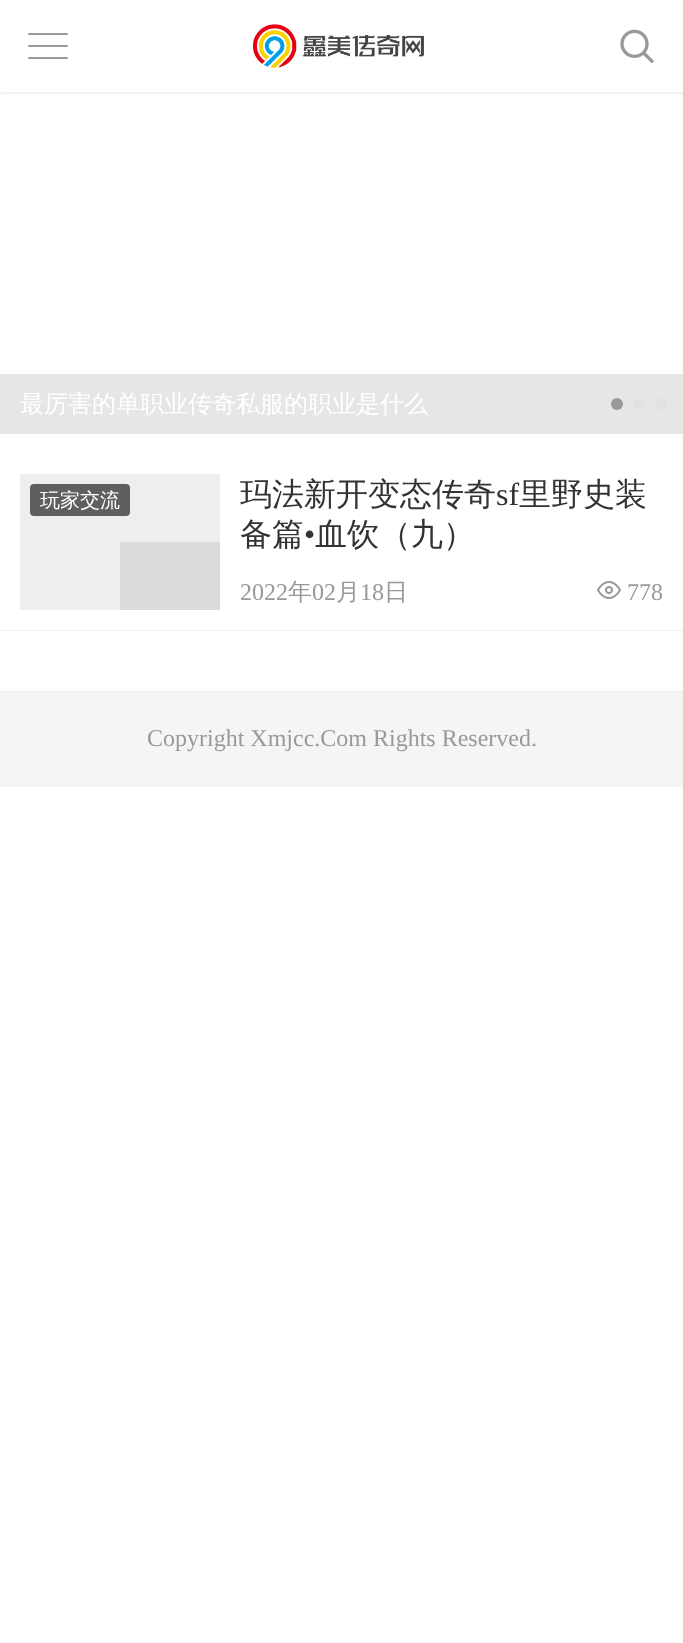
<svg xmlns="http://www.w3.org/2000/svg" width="683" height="1643">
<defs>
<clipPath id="clip1"><rect x="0" y="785" width="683" height="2"/></clipPath>
</defs>
<rect width="100%" height="100%" fill="#fff"/>
<rect x="-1" width="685" height="94" fill="#0000000f" filter="blur(1px)"/>
<g clip-path="url(#clip1)">
<rect x="-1" y="92" width="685" height="695" fill="#0000000f" filter="blur(1px)"/>
</g>
<rect width="683" height="92" fill="#fff"/>
<rect x="28" y="33" width="40" height="2" rx="1" fill="#999"/>
<rect x="28" y="45" width="40" height="2" rx="1" fill="#999"/>
<rect x="28" y="57" width="40" height="2" rx="1" fill="#999"/>
<image x="253" y="24" width="172" height="44" href="media/1.png"/>
<image x="620" y="29" width="34" height="34" href="media/2.png"/>
<rect y="374" width="683" height="60" fill="#e6e6e6"/>
<text x="20" y="412" style="font-family:WenQuanYi Zen Hei;font-size:24px;font-weight:500;fill:#fff">最厉害的单职业传奇私服的职业是什么</text>
<circle cx="617" cy="404" r="6" fill="#999"/>
<circle cx="639" cy="404" r="6" fill="#e1e1e1"/>
<circle cx="661" cy="404" r="6" fill="#e1e1e1"/>
<rect y="630" width="683" height="1" fill="#efefef"/>
<rect x="20" y="474" width="200" height="136" fill="#eee"/>
<rect x="30" y="484" width="100" height="32" rx="4" fill="#5f5f5f"/>
<text x="40" y="507" style="font-family:WenQuanYi Zen Hei;font-size:20px;font-weight:500;fill:#fff">玩家交流</text>
<rect x="120" y="542" width="100" height="68" fill="#dbdbdb"/>
<text x="240" y="505" style="font-family:WenQuanYi Zen Hei;font-size:32px;font-weight:500;fill:#333">玛法新开变态传奇</text>
<text x="496" y="505" style="font-family:Liberation Serif;font-size:32px;fill:#333">sf</text>
<text x="519" y="505" style="font-family:WenQuanYi Zen Hei;font-size:32px;font-weight:500;fill:#333">里野史装</text>
<text x="240" y="545" style="font-family:WenQuanYi Zen Hei;font-size:32px;font-weight:500;fill:#333">备篇</text>
<text x="304" y="545" style="font-family:Liberation Serif;font-size:32px;fill:#333">•</text>
<text x="315" y="545" style="font-family:WenQuanYi Zen Hei;font-size:32px;font-weight:500;fill:#333">血饮（九）</text>
<text x="240" y="600" style="font-family:Liberation Serif;font-size:24px;fill:#999">2022</text>
<text x="288" y="600" style="font-family:WenQuanYi Zen Hei;font-size:24px;font-weight:500;fill:#999">年</text>
<text x="312" y="600" style="font-family:Liberation Serif;font-size:24px;fill:#999">02</text>
<text x="336" y="600" style="font-family:WenQuanYi Zen Hei;font-size:24px;font-weight:500;fill:#999">月</text>
<text x="360" y="600" style="font-family:Liberation Serif;font-size:24px;fill:#999">18</text>
<text x="384" y="600" style="font-family:WenQuanYi Zen Hei;font-size:24px;font-weight:500;fill:#999">日</text>
<image x="597" y="581" width="24" height="18" href="media/3.png"/>
<text x="627" y="600" style="font-family:Liberation Serif;font-size:24px;fill:#999">778</text>
<rect y="692" width="683" height="93" fill="#f5f5f5"/>
<rect y="691" width="683" height="1" fill="#eee"/>
<text x="147" y="746" style="font-family:Liberation Serif;font-size:24px;fill:#999">Copyright Xmjcc.Com Rights Reserved.</text>
</svg>
